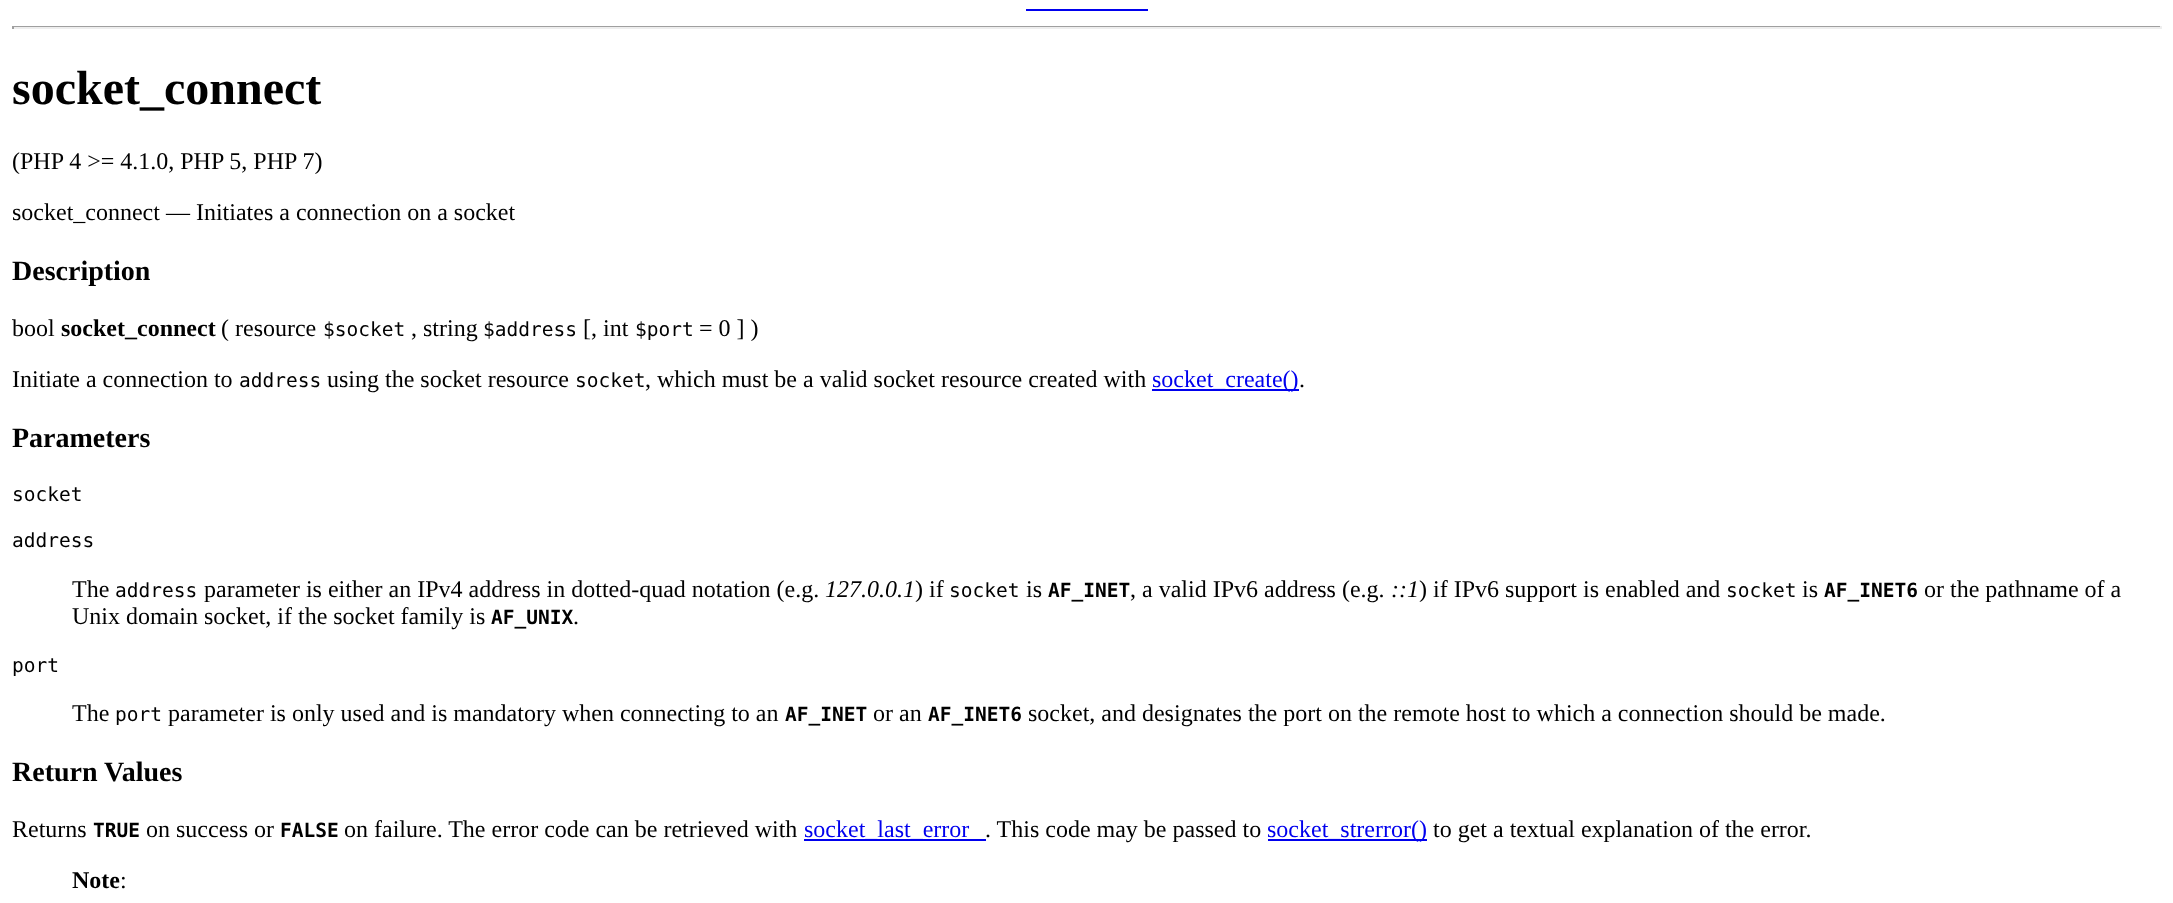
<svg xmlns="http://www.w3.org/2000/svg" width="2173" height="903">
<rect width="100%" height="100%" fill="#fff"/>
<rect x="1026" y="9" width="122" height="2" fill="#00e"/>
<rect x="12" y="26" width="2150" height="1" fill="#9f9f9f"/>
<rect x="2160" y="26" width="2" height="3" fill="#eee"/>
<rect x="12" y="27" width="2150" height="2" fill="#eee"/>
<rect x="12" y="26" width="2" height="3" fill="#9f9f9f"/>
<text x="12" y="104" style="font-family:Liberation Serif;font-size:48px;font-weight:bold;fill:#000">socket_connect</text>
<text x="12" y="169" style="font-family:Liberation Serif;font-size:24px;fill:#000">(PHP 4 &gt;= 4.1.0, PHP 5, PHP 7)</text>
<text x="12" y="220" style="font-family:Liberation Serif;font-size:24px;fill:#000">socket_connect — Initiates a connection on a socket</text>
<text x="12" y="280" style="font-family:Liberation Serif;font-size:28px;font-weight:bold;fill:#000">Description</text>
<text x="12" y="336" style="font-family:Liberation Serif;font-size:24px;fill:#000">bool</text>
<text x="61" y="336" style="font-family:Liberation Serif;font-size:24px;font-weight:bold;fill:#000">socket_connect</text>
<text x="221" y="336" style="font-family:Liberation Serif;font-size:24px;fill:#000">( resource</text>
<text x="323" y="336" style="font-family:DejaVu Sans Mono;font-size:19.5px;fill:#000">$socket</text>
<text x="411" y="336" style="font-family:Liberation Serif;font-size:24px;fill:#000">, string</text>
<text x="483" y="336" style="font-family:DejaVu Sans Mono;font-size:19.5px;fill:#000">$address</text>
<text x="583" y="336" style="font-family:Liberation Serif;font-size:24px;fill:#000">[, int</text>
<text x="635" y="336" style="font-family:DejaVu Sans Mono;font-size:19.5px;fill:#000">$port</text>
<text x="699" y="336" style="font-family:Liberation Serif;font-size:24px;fill:#000">= 0 ] )</text>
<text x="12" y="387" style="font-family:Liberation Serif;font-size:24px;fill:#000">Initiate a connection to</text>
<text x="239" y="387" style="font-family:DejaVu Sans Mono;font-size:19.5px;fill:#000">address</text>
<text x="327" y="387" style="font-family:Liberation Serif;font-size:24px;fill:#000">using the socket resource</text>
<text x="575" y="387" style="font-family:DejaVu Sans Mono;font-size:19.5px;fill:#000">socket</text>
<text x="645" y="387" style="font-family:Liberation Serif;font-size:24px;fill:#000">, which must be a valid socket resource created with</text>
<rect x="1152" y="389" width="147" height="2" fill="#00e"/>
<text x="1152" y="387" style="font-family:Liberation Serif;font-size:24px;fill:#00e">socket_create()</text>
<text x="1299" y="387" style="font-family:Liberation Serif;font-size:24px;fill:#000">.</text>
<text x="12" y="447" style="font-family:Liberation Serif;font-size:28px;font-weight:bold;fill:#000">Parameters</text>
<text x="12" y="501" style="font-family:DejaVu Sans Mono;font-size:19.5px;fill:#000">socket</text>
<text x="12" y="547" style="font-family:DejaVu Sans Mono;font-size:19.5px;fill:#000">address</text>
<text x="72" y="597" style="font-family:Liberation Serif;font-size:24px;fill:#000">The</text>
<text x="115" y="597" style="font-family:DejaVu Sans Mono;font-size:19.5px;fill:#000">address</text>
<text x="204" y="597" style="font-family:Liberation Serif;font-size:24px;fill:#000">parameter is either an IPv4 address in dotted-quad notation (e.g.</text>
<text x="825" y="597" style="font-family:Liberation Serif;font-size:24px;font-style:italic;fill:#000">127.0.0.1</text>
<text x="915" y="597" style="font-family:Liberation Serif;font-size:24px;fill:#000">) if</text>
<text x="949" y="597" style="font-family:DejaVu Sans Mono;font-size:19.5px;fill:#000">socket</text>
<text x="1026" y="597" style="font-family:Liberation Serif;font-size:24px;fill:#000">is</text>
<text x="1048" y="597" style="font-family:DejaVu Sans Mono;font-size:19.5px;font-weight:bold;fill:#000">AF_INET</text>
<text x="1130" y="597" style="font-family:Liberation Serif;font-size:24px;fill:#000">, a valid IPv6 address (e.g.</text>
<text x="1391" y="597" style="font-family:Liberation Serif;font-size:24px;font-style:italic;fill:#000">::1</text>
<text x="1419" y="597" style="font-family:Liberation Serif;font-size:24px;fill:#000">) if IPv6 support is enabled and</text>
<text x="1726" y="597" style="font-family:DejaVu Sans Mono;font-size:19.5px;fill:#000">socket</text>
<text x="1802" y="597" style="font-family:Liberation Serif;font-size:24px;fill:#000">is</text>
<text x="1824" y="597" style="font-family:DejaVu Sans Mono;font-size:19.5px;font-weight:bold;fill:#000">AF_INET6</text>
<text x="1924" y="597" style="font-family:Liberation Serif;font-size:24px;fill:#000">or the pathname of a</text>
<text x="72" y="624" style="font-family:Liberation Serif;font-size:24px;fill:#000">Unix domain socket, if the socket family is</text>
<text x="491" y="624" style="font-family:DejaVu Sans Mono;font-size:19.5px;font-weight:bold;fill:#000">AF_UNIX</text>
<text x="573" y="624" style="font-family:Liberation Serif;font-size:24px;fill:#000">.</text>
<text x="12" y="672" style="font-family:DejaVu Sans Mono;font-size:19.5px;fill:#000">port</text>
<text x="72" y="721" style="font-family:Liberation Serif;font-size:24px;fill:#000">The</text>
<text x="115" y="721" style="font-family:DejaVu Sans Mono;font-size:19.5px;fill:#000">port</text>
<text x="168" y="721" style="font-family:Liberation Serif;font-size:24px;fill:#000">parameter is only used and is mandatory when connecting to an</text>
<text x="785" y="721" style="font-family:DejaVu Sans Mono;font-size:19.5px;font-weight:bold;fill:#000">AF_INET</text>
<text x="873" y="721" style="font-family:Liberation Serif;font-size:24px;fill:#000">or an</text>
<text x="928" y="721" style="font-family:DejaVu Sans Mono;font-size:19.5px;font-weight:bold;fill:#000">AF_INET6</text>
<text x="1028" y="721" style="font-family:Liberation Serif;font-size:24px;fill:#000">socket, and designates the port on the remote host to which a connection should be made.</text>
<text x="12" y="781" style="font-family:Liberation Serif;font-size:28px;font-weight:bold;fill:#000">Return Values</text>
<text x="12" y="837" style="font-family:Liberation Serif;font-size:24px;fill:#000">Returns</text>
<text x="93" y="837" style="font-family:DejaVu Sans Mono;font-size:19.5px;font-weight:bold;fill:#000">TRUE</text>
<text x="146" y="837" style="font-family:Liberation Serif;font-size:24px;fill:#000">on success or</text>
<text x="280" y="837" style="font-family:DejaVu Sans Mono;font-size:19.5px;font-weight:bold;fill:#000">FALSE</text>
<text x="344" y="837" style="font-family:Liberation Serif;font-size:24px;fill:#000">on failure. The error code can be retrieved with</text>
<rect x="804" y="839" width="182" height="2" fill="#00e"/>
<text x="804" y="837" style="font-family:Liberation Serif;font-size:24px;fill:#00e">socket_last_error</text>
<text x="985" y="837" style="font-family:Liberation Serif;font-size:24px;fill:#000">. This code may be passed to</text>
<rect x="1268" y="839" width="159" height="2" fill="#00e"/>
<text x="1267" y="837" style="font-family:Liberation Serif;font-size:24px;fill:#00e">socket_strerror()</text>
<text x="1433" y="837" style="font-family:Liberation Serif;font-size:24px;fill:#000">to get a textual explanation of the error.</text>
<text x="72" y="888" style="font-family:Liberation Serif;font-size:24px;font-weight:bold;fill:#000">Note</text>
<text x="120" y="888" style="font-family:Liberation Serif;font-size:24px;fill:#000">:</text>
</svg>
